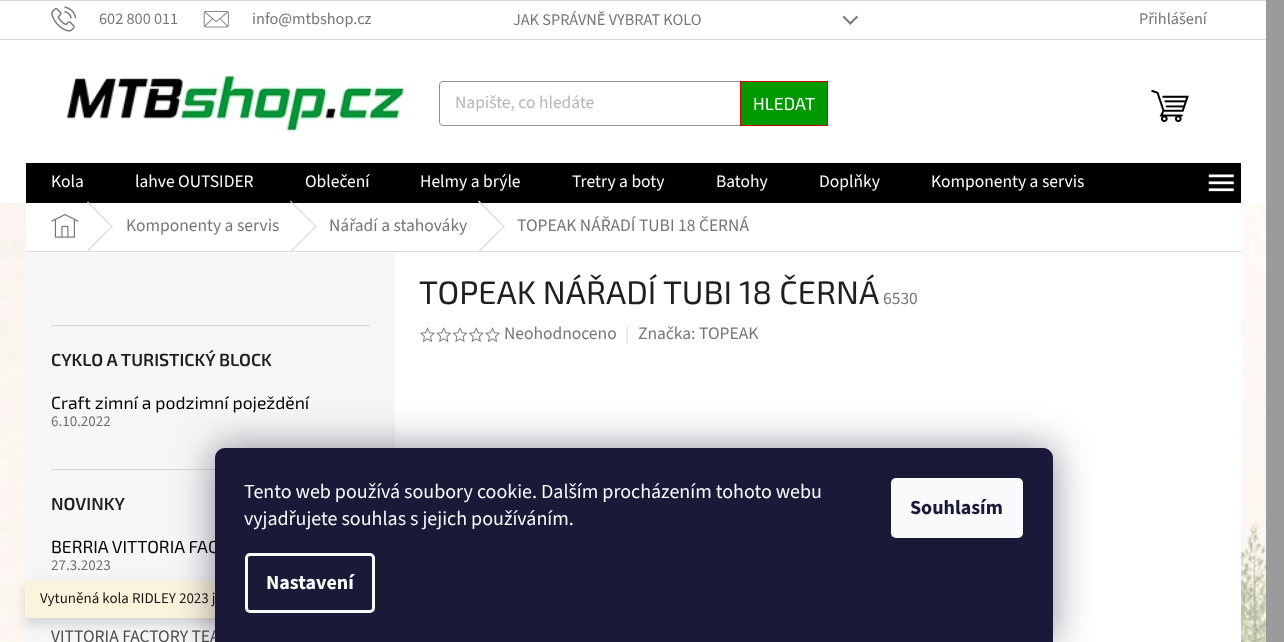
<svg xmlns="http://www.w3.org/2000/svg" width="1284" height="642">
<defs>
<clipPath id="clip1"><path d="M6 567h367v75h-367zm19 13h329v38h-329z" clip-rule="evenodd"/></clipPath>
</defs>
<rect width="100%" height="100%" fill="#9b9b9b"/>
<image x="0" y="203" width="1266" height="439" href="media/1.png"/>
<rect y="1" width="1266" height="38" fill="#fff"/>
<rect width="1266" height="1" fill="#dadada"/>
<rect y="39" width="1266" height="1" fill="#dadada"/>
<image x="51" y="6" width="26" height="26" href="media/2.png"/>
<text x="99" y="24" style="font-family:'Source Sans 3';font-size:16.25px;fill:#767676">602 800 011</text>
<image x="203" y="11" width="26" height="17" href="media/3.png"/>
<text x="252" y="24" style="font-family:'Source Sans 3';font-size:16.25px;fill:#767676">info@mtbshop.cz</text>
<text x="513" y="25" style="font-family:'Source Sans 3';font-size:16.25px;fill:#767676">JAK SPRÁVNĚ VYBRAT KOLO</text>
<image x="842" y="15" width="16" height="10" href="media/4.png"/>
<text x="1139" y="24" style="font-family:'Source Sans 3';font-size:16.25px;fill:#767676">Přihlášení</text>
<rect y="40" width="1266" height="163" fill="#fff"/>
<image x="66" y="74" width="340" height="59" href="media/5.png"/>
<rect x="439.5" y="81.5" width="388" height="44" rx="3.5" fill="none" stroke="#919191"/>
<text x="455" y="108" style="font-family:'Source Sans 3';font-size:17.5px;fill:#b6b6b6">Napište, co hledáte</text>
<rect x="740.5" y="81.5" width="87" height="44" fill="#009901" stroke="#cb0000"/>
<text x="753" y="110" style="font-family:'Exo 2';font-size:17.5px;fill:#fff">HLEDAT</text>
<image x="1151" y="89" width="38" height="33" href="media/6.png"/>
<rect x="26" y="163" width="1215" height="40" fill="#000"/>
<text x="51" y="187" style="font-family:'Source Sans 3';font-size:17.5px;fill:#fff">Kola</text>
<text x="135" y="187" style="font-family:'Source Sans 3';font-size:17.5px;fill:#fff">lahve OUTSIDER</text>
<text x="305" y="187" style="font-family:'Source Sans 3';font-size:17.5px;fill:#fff">Oblečení</text>
<text x="420" y="187" style="font-family:'Source Sans 3';font-size:17.5px;fill:#fff">Helmy a brýle</text>
<text x="572" y="187" style="font-family:'Source Sans 3';font-size:17.5px;fill:#fff">Tretry a boty</text>
<text x="716" y="187" style="font-family:'Source Sans 3';font-size:17.5px;fill:#fff">Batohy</text>
<text x="819" y="187" style="font-family:'Source Sans 3';font-size:17.5px;fill:#fff">Doplňky</text>
<text x="931" y="187" style="font-family:'Source Sans 3';font-size:17.5px;fill:#fff">Komponenty a servis</text>
<image x="1208" y="174" width="26" height="18" href="media/7.png"/>
<rect x="26" y="203" width="1215" height="50" fill="#fff"/>
<rect x="26" y="251" width="1215" height="1" fill="#dadada"/>
<image x="51" y="214" width="28" height="24" href="media/8.png"/>
<path d="M87 202.5l1-1l25 25.5l-1 .5z" fill="#dadada"/>
<path d="M112 225.5l1 .5l-25 25.5l-1-1z" fill="#dadada"/>
<text x="126" y="231" style="font-family:'Source Sans 3';font-size:17.5px;fill:#767676">Komponenty a servis</text>
<path d="M290 201.5l.5-1l26.5 26.5l-1 .5z" fill="#dadada"/>
<path d="M316 225.5l1 .5l-26.5 26.5l-.5-1z" fill="#dadada"/>
<text x="329" y="231" style="font-family:'Source Sans 3';font-size:17.5px;fill:#767676">Nářadí a stahováky</text>
<path d="M478 201.5l1-1l26 26.5l-1 .5z" fill="#dadada"/>
<path d="M504 225.5l1 .5l-26 26.5l-1-1z" fill="#dadada"/>
<text x="517" y="231" style="font-family:'Source Sans 3';font-size:17.5px;fill:#767676">TOPEAK NÁŘADÍ TUBI 18 ČERNÁ</text>
<rect x="395" y="253" width="846" height="389" fill="#fff"/>
<text x="419" y="304" style="font-family:'Exo 2';font-size:32.5px;fill:#1f1f1f">TOPEAK NÁŘADÍ TUBI 18 ČERNÁ</text>
<text x="883" y="304" style="font-family:'Source Sans 3';font-size:17.5px;fill:#767676">6530</text>
<image x="420" y="327" width="15" height="15" href="media/9.png"/>
<image x="436" y="327" width="16" height="15" href="media/10.png"/>
<image x="452" y="327" width="16" height="15" href="media/11.png"/>
<image x="468" y="327" width="16" height="15" href="media/12.png"/>
<image x="485" y="327" width="15" height="15" href="media/9.png"/>
<text x="504" y="339" style="font-family:'Source Sans 3';font-size:17.5px;fill:#767676">Neohodnoceno</text>
<text x="625" y="339" style="font-family:'Source Sans 3';font-size:17.5px;fill:#dadada">|</text>
<text x="638" y="339" style="font-family:'Source Sans 3';font-size:17.5px;fill:#767676">Značka: TOPEAK</text>
<rect x="26" y="253" width="369" height="389" fill="#f6f6f6"/>
<rect x="51" y="325" width="319" height="1" fill="#dadada"/>
<rect x="51" y="469" width="164" height="1" fill="#dadada"/>
<text x="51" y="366" style="font-family:'Exo 2';font-size:17.5px;font-weight:600;fill:#1f1f1f">CYKLO A TURISTICKÝ BLOCK</text>
<text x="51" y="409" style="font-family:'Exo 2';font-size:17.5px;fill:#000">Craft zimní a podzimní poježdění</text>
<text x="51" y="426" style="font-family:'Source Sans 3';font-size:15px;fill:#707070">6.10.2022</text>
<text x="51" y="510" style="font-family:'Exo 2';font-size:17.5px;font-weight:600;fill:#1f1f1f">NOVINKY</text>
<text x="51" y="553" style="font-family:'Exo 2';font-size:17.5px;fill:#000">BERRIA VITTORIA FAC</text>
<text x="51" y="570" style="font-family:'Source Sans 3';font-size:15px;fill:#707070">27.3.2023</text>
<text x="51" y="642" style="font-family:'Source Sans 3';font-size:17.5px;fill:#4d4d4d">VITTORIA FACTORY TEA</text>
<g clip-path="url(#clip1)">
<rect x="25" y="586" width="329" height="38" fill="#00000024" filter="blur(6px)"/>
</g>
<rect x="25" y="580" width="190" height="38" fill="#fdf3dae6"/>
<text x="40" y="603" style="font-family:'Source Sans 3';font-size:15px;fill:#191816">Vytuněná kola RIDLEY 2023 j</text>
<rect x="215" y="448" width="838" height="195" rx="10" fill="#1b193980" filter="blur(19px)"/>
<path d="M225 448h818c5.5 0 10 4.5 10 10v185h-838v-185c0-5.5 4.5-10 10-10z" fill="#1a1937"/>
<text x="244" y="498" style="font-family:'Source Sans 3';font-size:20px;fill:#f8fafb">Tento web používá soubory cookie. Dalším procházením tohoto webu</text>
<text x="244" y="525" style="font-family:'Source Sans 3';font-size:20px;fill:#f8fafb">vyjadřujete souhlas s jejich používáním.</text>
<rect x="246.5" y="554.5" width="127" height="57" rx="3.5" fill="none" stroke="#f8fafb" stroke-width="3"/>
<text x="266" y="589" style="font-family:'Source Sans 3';font-size:20px;font-weight:bold;fill:#f8fafb">Nastavení</text>
<rect x="891" y="478" width="132" height="60" rx="5" fill="#f8fafb"/>
<text x="910" y="514" style="font-family:'Source Sans 3';font-size:20px;font-weight:bold;fill:#1a1937">Souhlasím</text>
</svg>
